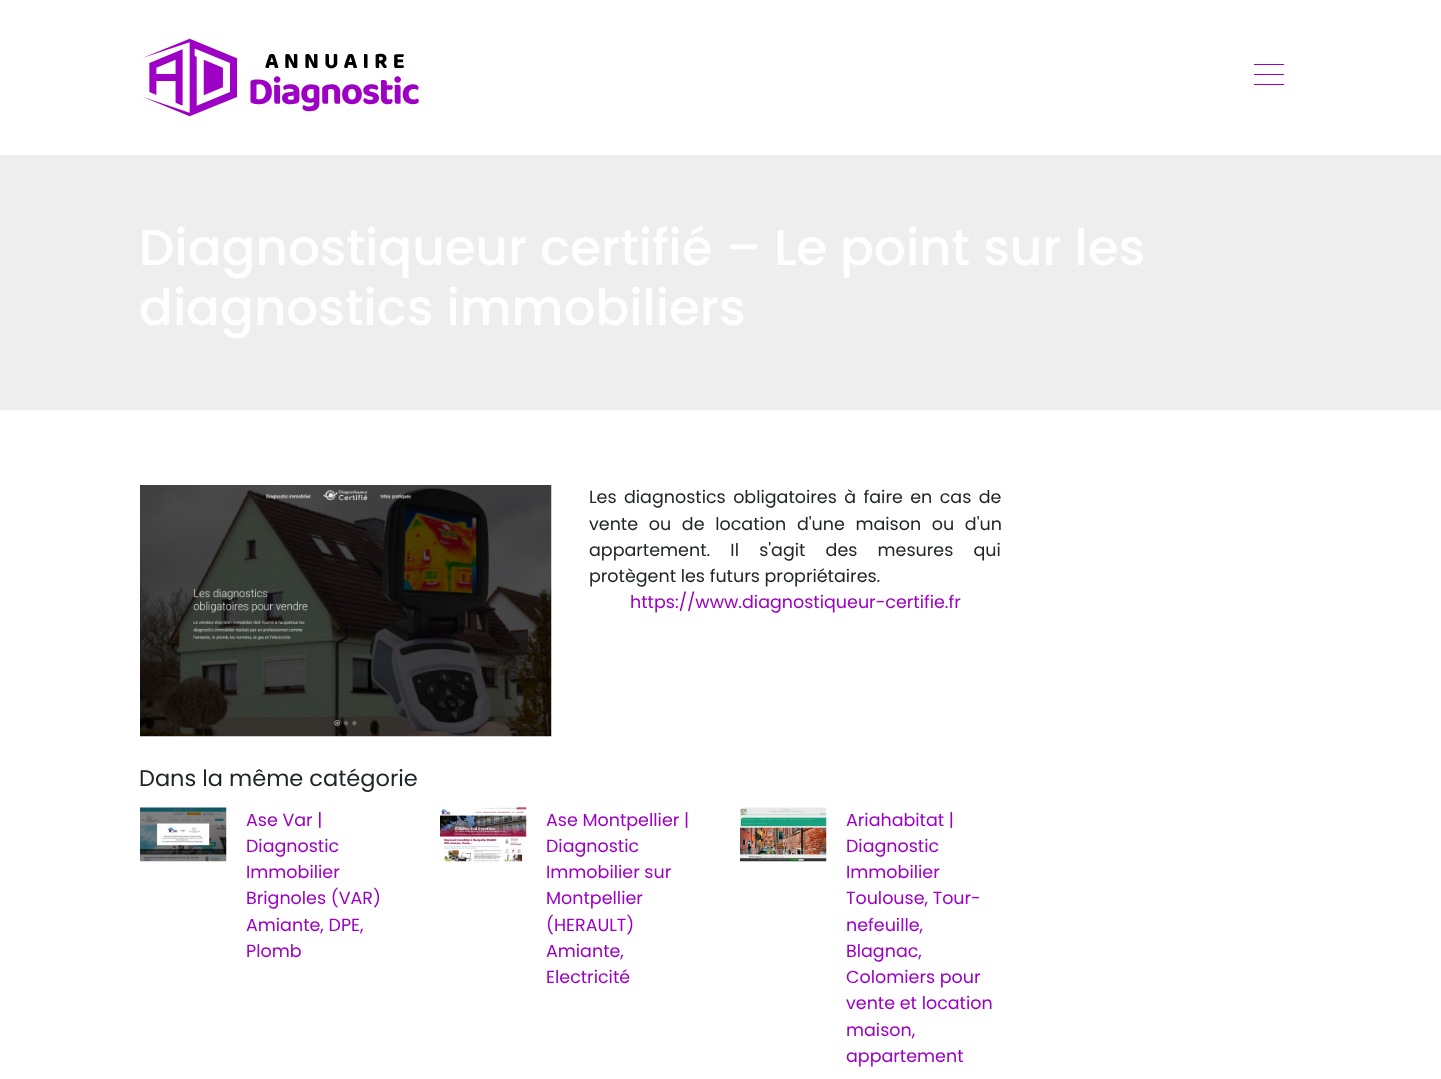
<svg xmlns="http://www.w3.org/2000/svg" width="1441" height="1079">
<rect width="100%" height="100%" fill="#fff"/>
<image x="143" y="38" width="276" height="79" href="media/1.png"/>
<rect x="1254" y="64" width="30" height="1" fill="#9d00c4"/>
<rect x="1254" y="74" width="30" height="1" fill="#9d00c4"/>
<rect x="1254" y="84" width="30" height="1" fill="#9d00c4"/>
<rect y="155" width="1441" height="255" fill="#eee"/>
<text x="139" y="265" style="font-family:Poppins;font-size:50px;font-weight:500;fill:#fff">Diagnostiqueur certifié – Le point sur les</text>
<text x="139" y="325" style="font-family:Poppins;font-size:50px;font-weight:500;fill:#fff">diagnostics immobiliers</text>
<image x="140" y="485" width="412" height="252" href="media/2.png"/>
<text x="589" y="503" word-spacing="2.75" style="font-family:Poppins;font-size:17.5px;fill:#212529">Les diagnostics obligatoires à faire en cas de</text>
<text x="589" y="530" word-spacing="6" style="font-family:Poppins;font-size:17.5px;fill:#212529">vente ou de location d'une maison ou d'un</text>
<text x="589" y="556" word-spacing="15.5" style="font-family:Poppins;font-size:17.5px;fill:#212529">appartement. Il s'agit des mesures qui</text>
<text x="589" y="582" style="font-family:Poppins;font-size:17.5px;fill:#212529">protègent les futurs propriétaires.</text>
<text x="630" y="608" style="font-family:Poppins;font-size:17.5px;fill:#9d00c4">https://www.diagnostiqueur-certifie.fr</text>
<text x="139" y="786" style="font-family:Poppins;font-size:22.5px;fill:#212529">Dans la même catégorie</text>
<image x="140" y="807" width="87" height="55" href="media/3.png"/>
<text x="246" y="826" style="font-family:Poppins;font-size:17.5px;fill:#9d00c4">Ase Var |</text>
<text x="246" y="852" style="font-family:Poppins;font-size:17.5px;fill:#9d00c4">Diagnostic</text>
<text x="246" y="878" style="font-family:Poppins;font-size:17.5px;fill:#9d00c4">Immobilier</text>
<text x="246" y="904" style="font-family:Poppins;font-size:17.5px;fill:#9d00c4">Brignoles (VAR)</text>
<text x="246" y="931" style="font-family:Poppins;font-size:17.5px;fill:#9d00c4">Amiante, DPE,</text>
<text x="246" y="957" style="font-family:Poppins;font-size:17.5px;fill:#9d00c4">Plomb</text>
<image x="440" y="807" width="87" height="55" href="media/4.png"/>
<text x="546" y="826" style="font-family:Poppins;font-size:17.5px;fill:#9d00c4">Ase Montpellier |</text>
<text x="546" y="852" style="font-family:Poppins;font-size:17.5px;fill:#9d00c4">Diagnostic</text>
<text x="546" y="878" style="font-family:Poppins;font-size:17.5px;fill:#9d00c4">Immobilier sur</text>
<text x="546" y="904" style="font-family:Poppins;font-size:17.5px;fill:#9d00c4">Montpellier</text>
<text x="546" y="931" style="font-family:Poppins;font-size:17.5px;fill:#9d00c4">(HERAULT)</text>
<text x="546" y="957" style="font-family:Poppins;font-size:17.5px;fill:#9d00c4">Amiante,</text>
<text x="546" y="983" style="font-family:Poppins;font-size:17.5px;fill:#9d00c4">Electricité</text>
<image x="740" y="807" width="87" height="55" href="media/5.png"/>
<text x="846" y="826" style="font-family:Poppins;font-size:17.5px;fill:#9d00c4">Ariahabitat |</text>
<text x="846" y="852" style="font-family:Poppins;font-size:17.5px;fill:#9d00c4">Diagnostic</text>
<text x="846" y="878" style="font-family:Poppins;font-size:17.5px;fill:#9d00c4">Immobilier</text>
<text x="846" y="904" style="font-family:Poppins;font-size:17.5px;fill:#9d00c4">Toulouse, Tour-</text>
<text x="846" y="931" style="font-family:Poppins;font-size:17.5px;fill:#9d00c4">nefeuille,</text>
<text x="846" y="957" style="font-family:Poppins;font-size:17.5px;fill:#9d00c4">Blagnac,</text>
<text x="846" y="983" style="font-family:Poppins;font-size:17.5px;fill:#9d00c4">Colomiers pour</text>
<text x="846" y="1009" style="font-family:Poppins;font-size:17.5px;fill:#9d00c4">vente et location</text>
<text x="846" y="1036" style="font-family:Poppins;font-size:17.5px;fill:#9d00c4">maison,</text>
<text x="846" y="1062" style="font-family:Poppins;font-size:17.5px;fill:#9d00c4">appartement</text>
</svg>
